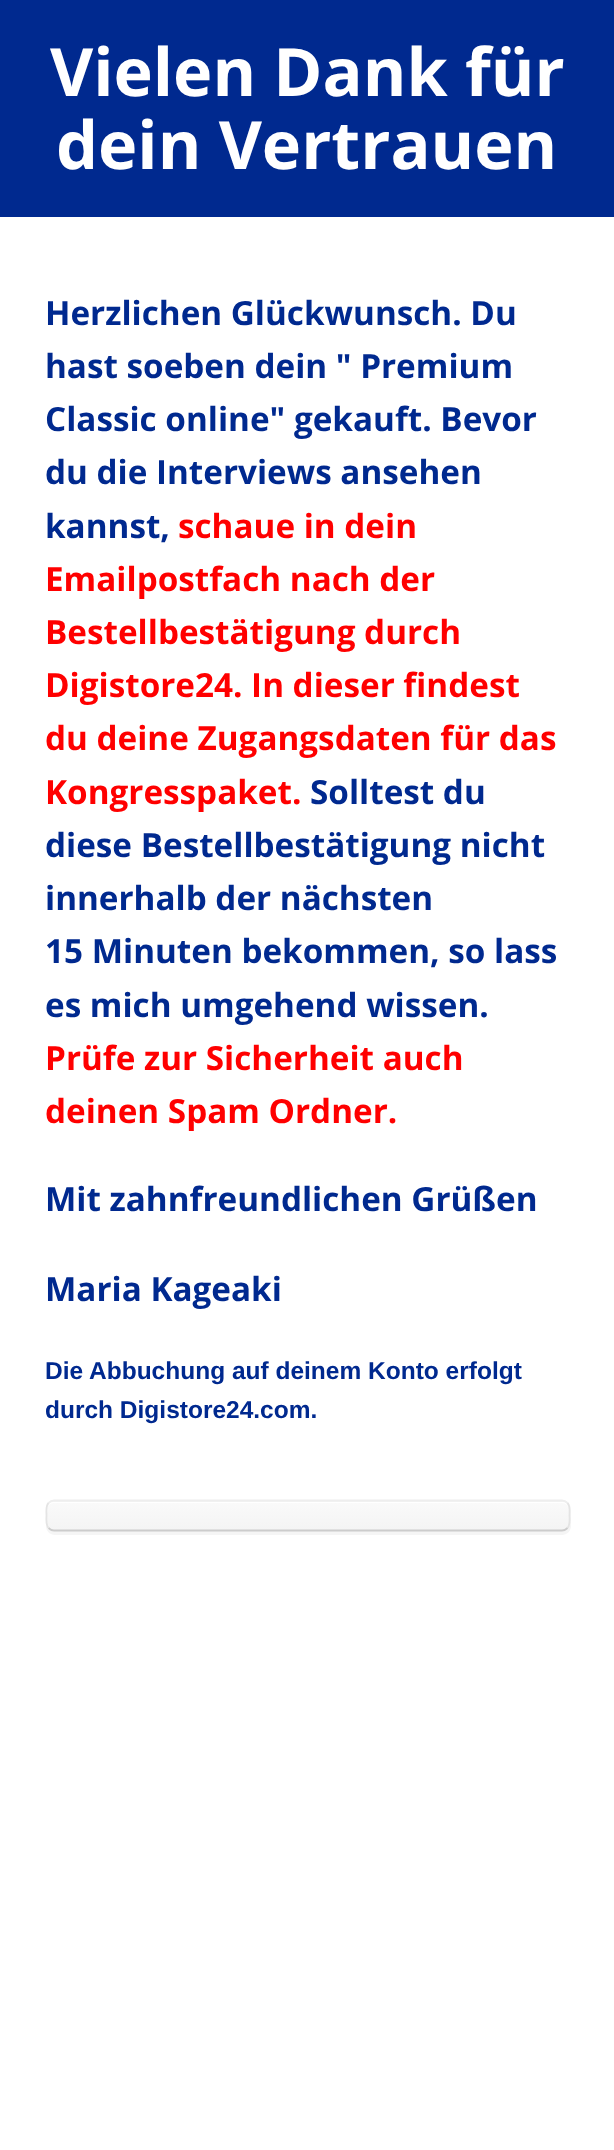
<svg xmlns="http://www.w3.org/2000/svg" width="614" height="2150">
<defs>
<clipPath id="clip1"><rect x="46" y="1500" width="525" height="31" rx="9"/></clipPath>
<linearGradient id="g1" gradientUnits="userSpaceOnUse" x1="308" y1="1474" x2="308" y2="1502"><stop offset="0" stop-color="#fafafa"/><stop offset="1" stop-color="#f4f4f4"/></linearGradient>
<linearGradient id="g2" gradientUnits="userSpaceOnUse" x1="308" y1="1502" x2="308" y2="1530"><stop offset="0" stop-color="#fafafa"/><stop offset="1" stop-color="#f4f4f4"/></linearGradient>
</defs>
<rect width="100%" height="100%" fill="#fff"/>
<rect width="614" height="217" fill="#00298f"/>
<text x="50" y="96" style="font-family:Open Sans;font-size:66.5px;font-weight:bold;fill:#fff">Vielen Dank für</text>
<text x="56" y="169" style="font-family:Open Sans;font-size:66.5px;font-weight:bold;fill:#fff">dein Vertrauen</text>
<text x="45" y="325" style="font-family:Open Sans;font-size:33.25px;font-weight:bold;fill:#00298f">Herzlichen Glückwunsch. Du</text>
<text x="45" y="378" style="font-family:Open Sans;font-size:33.25px;font-weight:bold;fill:#00298f">hast soeben dein " Premium</text>
<text x="45" y="431" style="font-family:Open Sans;font-size:33.25px;font-weight:bold;fill:#00298f">Classic online" gekauft. Bevor</text>
<text x="45" y="484" style="font-family:Open Sans;font-size:33.25px;font-weight:bold;fill:#00298f">du die Interviews ansehen</text>
<text x="45" y="538" style="font-family:Open Sans;font-size:33.25px;font-weight:bold;fill:#00298f">kannst,</text>
<text x="178" y="538" style="font-family:Open Sans;font-size:33.25px;font-weight:bold;fill:#f00">schaue in dein</text>
<text x="45" y="591" style="font-family:Open Sans;font-size:33.25px;font-weight:bold;fill:#f00">Emailpostfach nach der</text>
<text x="45" y="644" style="font-family:Open Sans;font-size:33.25px;font-weight:bold;fill:#f00">Bestellbestätigung durch</text>
<text x="45" y="697" style="font-family:Open Sans;font-size:33.25px;font-weight:bold;fill:#f00">Digistore24. In dieser findest</text>
<text x="45" y="750" style="font-family:Open Sans;font-size:33.25px;font-weight:bold;fill:#f00">du deine Zugangsdaten für das</text>
<text x="45" y="804" style="font-family:Open Sans;font-size:33.25px;font-weight:bold;fill:#f00">Kongresspaket.</text>
<text x="310" y="804" style="font-family:Open Sans;font-size:33.25px;font-weight:bold;fill:#00298f">Solltest du</text>
<text x="45" y="857" style="font-family:Open Sans;font-size:33.25px;font-weight:bold;fill:#00298f">diese Bestellbestätigung nicht</text>
<text x="45" y="910" style="font-family:Open Sans;font-size:33.25px;font-weight:bold;fill:#00298f">innerhalb der nächsten</text>
<text x="45" y="963" style="font-family:Open Sans;font-size:33.25px;font-weight:bold;fill:#00298f">15 Minuten bekommen, so lass</text>
<text x="45" y="1017" style="font-family:Open Sans;font-size:33.25px;font-weight:bold;fill:#00298f">es mich umgehend wissen.</text>
<text x="45" y="1070" style="font-family:Open Sans;font-size:33.25px;font-weight:bold;fill:#f00">Prüfe zur Sicherheit auch</text>
<text x="45" y="1123" style="font-family:Open Sans;font-size:33.25px;font-weight:bold;fill:#f00">deinen Spam Ordner.</text>
<text x="45" y="1211" style="font-family:Open Sans;font-size:33.25px;font-weight:bold;fill:#00298f">Mit zahnfreundlichen Grüßen</text>
<text x="45" y="1301" style="font-family:Open Sans;font-size:33.25px;font-weight:bold;fill:#00298f">Maria Kageaki</text>
<text x="45" y="1379" style="font-family:Liberation Sans;font-size:24.5px;font-weight:bold;fill:#00298f">Die Abbuchung auf deinem Konto erfolgt</text>
<text x="45" y="1418" style="font-family:Liberation Sans;font-size:24.5px;font-weight:bold;fill:#00298f">durch Digistore24.com.</text>
<path d="M46 1525v1c0 5 4 9 9 9h507c5 0 9-4 9-9v-14l-1-3v13c0 5-3 9-8 9h-508c-4 0-7-2-8-6z" fill="#f5f5f5"/>
<g clip-path="url(#clip1)">
<rect x="46" y="1500" width="525" height="2" fill="url(#g1)"/>
<rect x="46" y="1502" width="525" height="28" fill="url(#g2)"/>
</g>
<path d="M54 1503h508c4 0 7 3 7 7c0-4-2-8-7-8h-508c-5 0-7 4-7 8c0-4 3-7 7-7z" fill="#fff"/>
<path d="M48.5 1503c1.5-1.5 3.5-2.5 5.5-2.5h508c2 0 4 1 5.5 2.5" fill="none" stroke="#eee" stroke-width="1.8"/>
<path d="M567.5 1503c3 3 2 8.5 2 12.5c0 4 1 9.5-2 12.5" fill="none" stroke="#e4e4e4" stroke-width="1.8"/>
<path d="M567.5 1528c-1.5 1.5-3.5 2.5-5.5 2.5h-508c-2 0-4-1-5.5-2.5" fill="none" stroke="#ccc" stroke-width="1.8"/>
<path d="M48.5 1528c-3-3-2-8.5-2-12.5c0-4-1-9.5 2-12.5" fill="none" stroke="#e4e4e4" stroke-width="1.8"/>
</svg>
